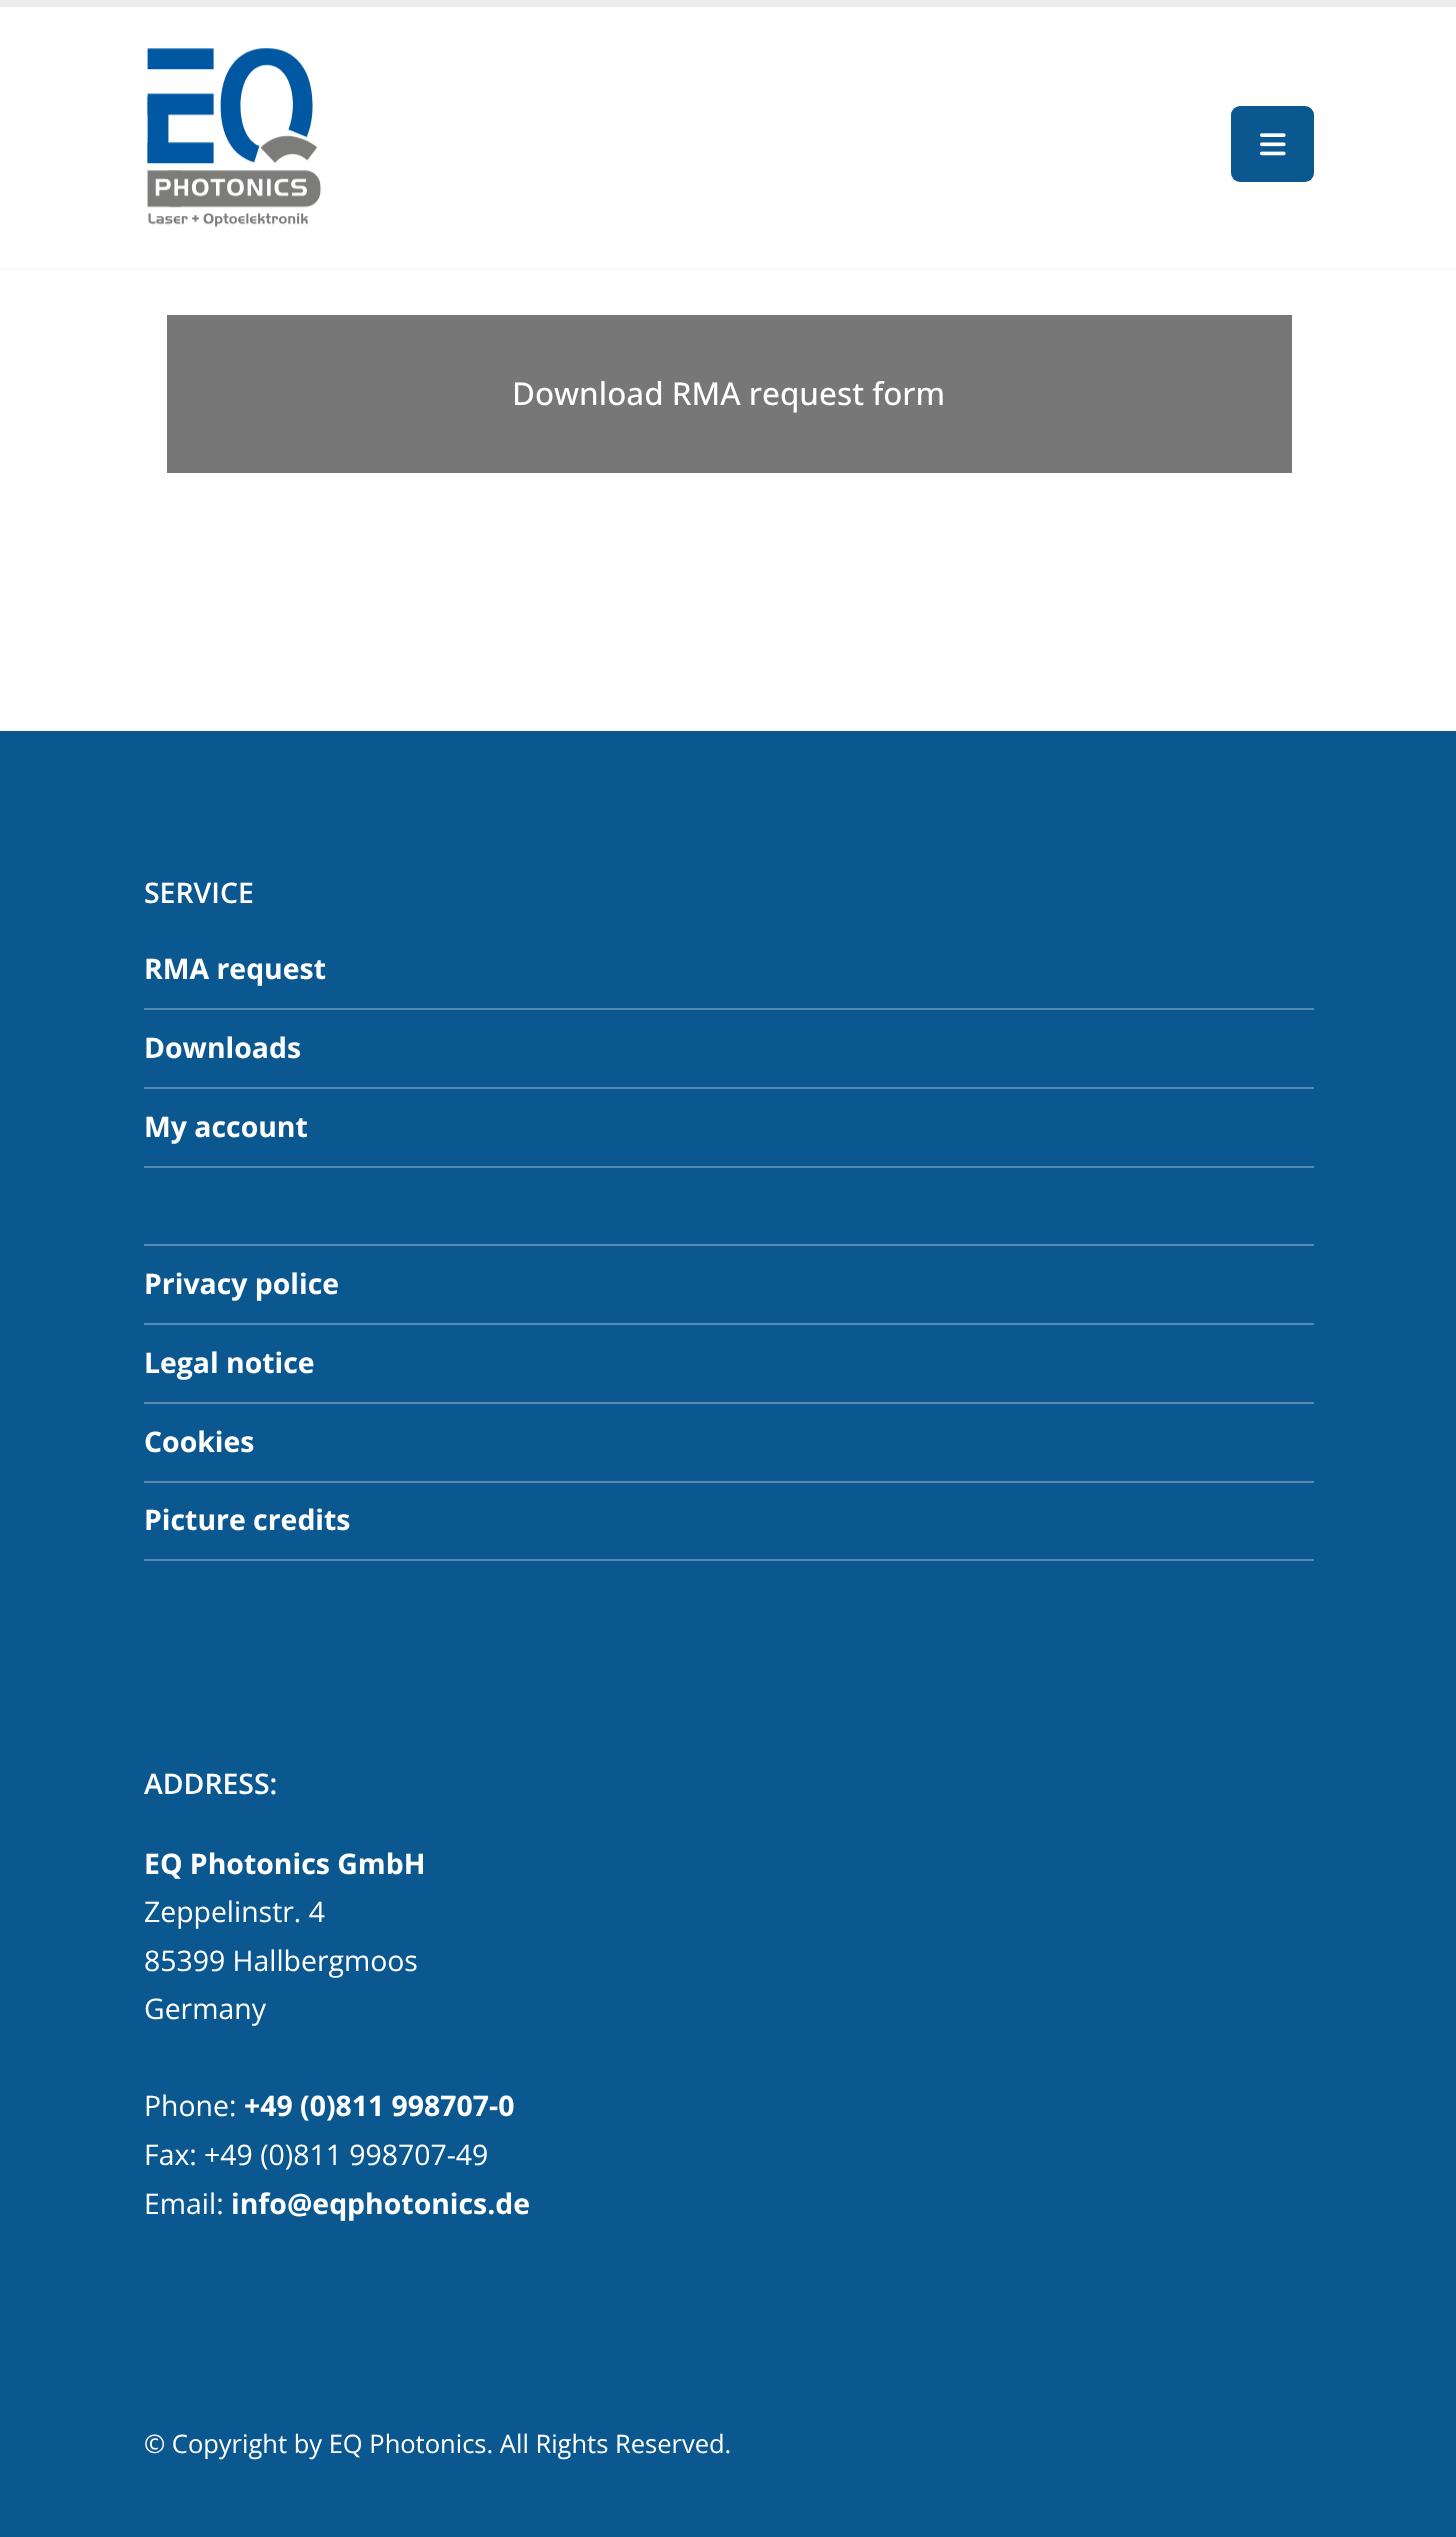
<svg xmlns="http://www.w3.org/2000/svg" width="1456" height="2537">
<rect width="100%" height="100%" fill="#fff"/>
<rect width="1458" height="268" fill="#0000000f" filter="blur(3.5px)"/>
<rect y="7" width="1456" height="261" fill="#fff"/>
<rect width="1456" height="7" fill="#ededed"/>
<image x="147" y="48" width="174" height="180" href="media/1.png"/>
<rect x="1231" y="106" width="83" height="76" rx="9" fill="#0b5891"/>
<image x="1260" y="133" width="26" height="23" href="media/2.png"/>
<rect x="167" y="315" width="1125" height="158" fill="#777"/>
<text x="512" y="405" style="font-family:Open Sans;font-size:31.5px;font-weight:500;fill:#fff">Download RMA request form</text>
<rect y="731" width="1456" height="1806" fill="#0b5891"/>
<text x="144" y="903" style="font-family:Open Sans;font-size:28.4px;font-weight:600;fill:#fff">SERVICE</text>
<rect x="144" y="1559" width="1170" height="2" fill="#548ab2"/>
<text x="144" y="979" style="font-family:Open Sans;font-size:28.4px;font-weight:bold;fill:#fff">RMA request</text>
<rect x="144" y="1008" width="1170" height="2" fill="#548ab2"/>
<text x="144" y="1058" style="font-family:Open Sans;font-size:28.4px;font-weight:bold;fill:#fff">Downloads</text>
<rect x="144" y="1087" width="1170" height="2" fill="#548ab2"/>
<text x="144" y="1137" style="font-family:Open Sans;font-size:28.4px;font-weight:bold;fill:#fff">My account</text>
<rect x="144" y="1166" width="1170" height="2" fill="#548ab2"/>
<rect x="144" y="1244" width="1170" height="2" fill="#548ab2"/>
<text x="144" y="1294" style="font-family:Open Sans;font-size:28.4px;font-weight:bold;fill:#fff">Privacy police</text>
<rect x="144" y="1323" width="1170" height="2" fill="#548ab2"/>
<text x="144" y="1373" style="font-family:Open Sans;font-size:28.4px;font-weight:bold;fill:#fff">Legal notice</text>
<rect x="144" y="1402" width="1170" height="2" fill="#548ab2"/>
<text x="144" y="1452" style="font-family:Open Sans;font-size:28.4px;font-weight:bold;fill:#fff">Cookies</text>
<rect x="144" y="1481" width="1170" height="2" fill="#548ab2"/>
<text x="144" y="1530" style="font-family:Open Sans;font-size:28.4px;font-weight:bold;fill:#fff">Picture credits</text>
<text x="144" y="1794" style="font-family:Open Sans;font-size:28.4px;font-weight:600;fill:#fff">ADDRESS:</text>
<text x="144" y="1874" style="font-family:Open Sans;font-size:28.4px;font-weight:bold;fill:#fff">EQ Photonics GmbH</text>
<text x="144" y="1922" style="font-family:Open Sans;font-size:28.4px;fill:#fff">Zeppelinstr. 4</text>
<text x="144" y="1971" style="font-family:Open Sans;font-size:28.4px;fill:#fff">85399 Hallbergmoos</text>
<text x="144" y="2019" style="font-family:Open Sans;font-size:28.4px;fill:#fff">Germany</text>
<text x="144" y="2116" style="font-family:Open Sans;font-size:28.4px;fill:#fff">Phone:</text>
<text x="244" y="2116" style="font-family:Open Sans;font-size:28.4px;font-weight:bold;fill:#fff">+49 (0)811 998707-0</text>
<text x="144" y="2165" style="font-family:Open Sans;font-size:28.4px;fill:#fff">Fax: +49 (0)811 998707-49</text>
<text x="144" y="2214" style="font-family:Open Sans;font-size:28.4px;fill:#fff">Email:</text>
<text x="231" y="2214" style="font-family:Open Sans;font-size:28.4px;font-weight:bold;fill:#fff">info@eqphotonics.de</text>
<text x="144" y="2453" style="font-family:Open Sans;font-size:25.5px;fill:#fff">© Copyright by EQ Photonics. All Rights Reserved.</text>
</svg>
